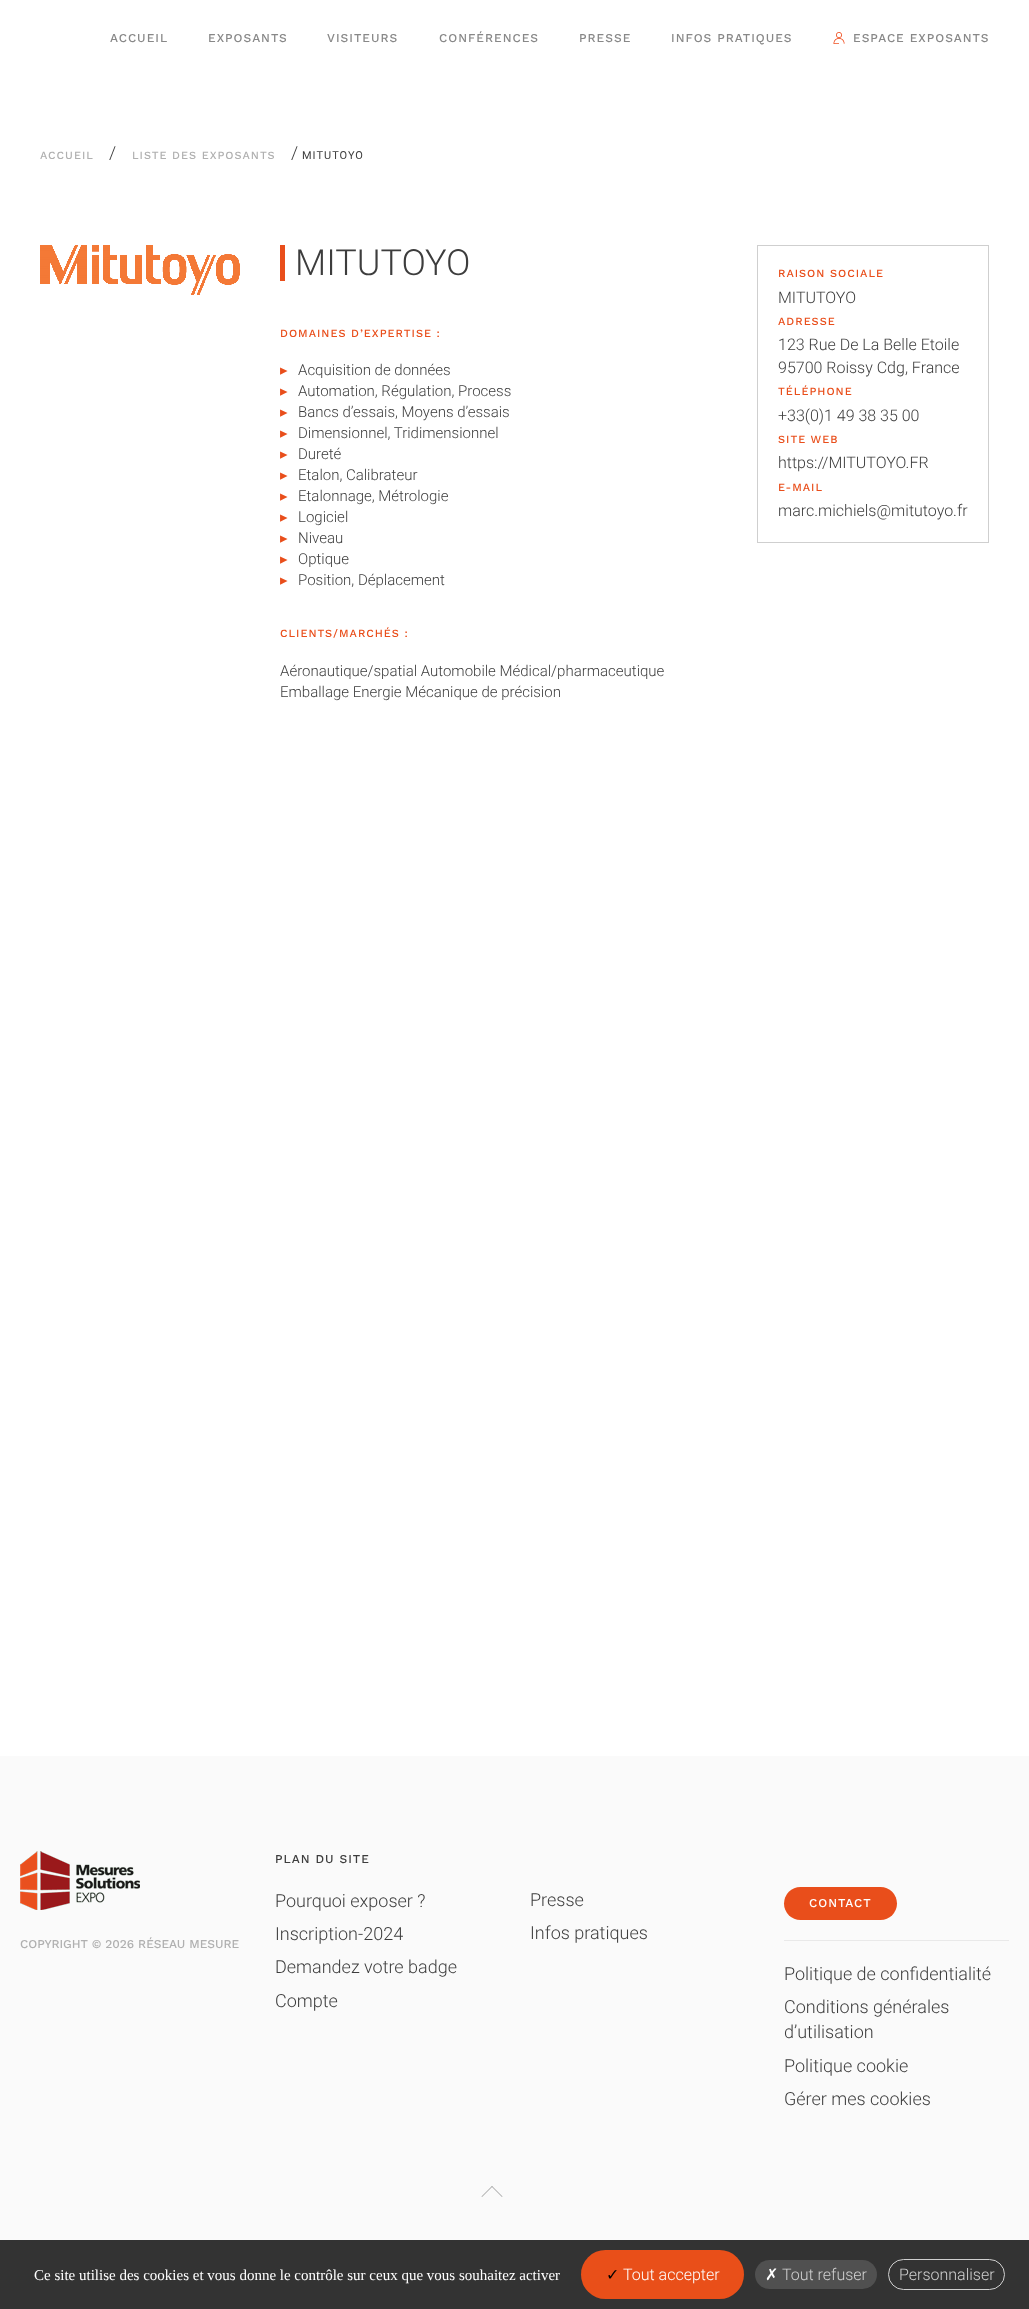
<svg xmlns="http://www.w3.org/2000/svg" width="1029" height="2309">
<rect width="100%" height="100%" fill="#fff"/>
<text x="110" y="42" style="font-family:Work Sans;font-size:12px;font-weight:500;letter-spacing:1px;fill:#888">ACCUEIL</text>
<text x="208" y="42" style="font-family:Work Sans;font-size:12px;font-weight:500;letter-spacing:1px;fill:#888">EXPOSANTS</text>
<text x="327" y="42" style="font-family:Work Sans;font-size:12px;font-weight:500;letter-spacing:1px;fill:#888">VISITEURS</text>
<text x="439" y="42" style="font-family:Work Sans;font-size:12px;font-weight:500;letter-spacing:1px;fill:#888">CONFÉRENCES</text>
<text x="579" y="42" style="font-family:Work Sans;font-size:12px;font-weight:500;letter-spacing:1px;fill:#888">PRESSE</text>
<text x="671" y="42" style="font-family:Work Sans;font-size:12px;font-weight:500;letter-spacing:1px;fill:#888">INFOS PRATIQUES</text>
<image x="833" y="32" width="12" height="12" href="media/1.png"/>
<text x="853" y="42" style="font-family:Work Sans;font-size:12px;font-weight:500;letter-spacing:1px;fill:#888">ESPACE EXPOSANTS</text>
<text x="40" y="159" style="font-family:Work Sans;font-size:11px;font-weight:500;letter-spacing:1px;fill:#b0b0b0">ACCUEIL</text>
<text x="109" y="159" style="font-family:Roboto;font-size:18px;font-weight:300;fill:#3d3d3d">/</text>
<text x="132" y="159" style="font-family:Work Sans;font-size:11px;font-weight:500;letter-spacing:1px;fill:#b0b0b0">LISTE DES EXPOSANTS</text>
<text x="291" y="159" style="font-family:Roboto;font-size:18px;font-weight:300;fill:#3d3d3d">/</text>
<text x="302" y="159" style="font-family:Roboto;font-size:11px;letter-spacing:1px;fill:#3d3d3d">MITUTOYO</text>
<image x="40" y="245" width="200" height="50" href="media/2.png"/>
<rect x="280" y="245" width="5" height="36" fill="#e94e1b"/>
<text x="295" y="275" style="font-family:Roboto;font-size:36px;font-weight:300;fill:#3d3d3d">MITUTOYO</text>
<text x="280" y="337" style="font-family:Work Sans;font-size:11px;font-weight:500;letter-spacing:1px;fill:#e94e1b">DOMAINES D’EXPERTISE :</text>
<text x="280" y="375" style="font-family:DejaVu Sans;font-size:15px;fill:#e94e1b">▸</text>
<text x="298" y="375" style="font-family:Roboto;font-size:15px;font-weight:300;fill:#3d3d3d">Acquisition de données</text>
<text x="280" y="396" style="font-family:DejaVu Sans;font-size:15px;fill:#e94e1b">▸</text>
<text x="298" y="396" style="font-family:Roboto;font-size:15px;font-weight:300;fill:#3d3d3d">Automation, Régulation, Process</text>
<text x="280" y="417" style="font-family:DejaVu Sans;font-size:15px;fill:#e94e1b">▸</text>
<text x="298" y="417" style="font-family:Roboto;font-size:15px;font-weight:300;fill:#3d3d3d">Bancs d’essais, Moyens d’essais</text>
<text x="280" y="438" style="font-family:DejaVu Sans;font-size:15px;fill:#e94e1b">▸</text>
<text x="298" y="438" style="font-family:Roboto;font-size:15px;font-weight:300;fill:#3d3d3d">Dimensionnel, Tridimensionnel</text>
<text x="280" y="459" style="font-family:DejaVu Sans;font-size:15px;fill:#e94e1b">▸</text>
<text x="298" y="459" style="font-family:Roboto;font-size:15px;font-weight:300;fill:#3d3d3d">Dureté</text>
<text x="280" y="480" style="font-family:DejaVu Sans;font-size:15px;fill:#e94e1b">▸</text>
<text x="298" y="480" style="font-family:Roboto;font-size:15px;font-weight:300;fill:#3d3d3d">Etalon, Calibrateur</text>
<text x="280" y="501" style="font-family:DejaVu Sans;font-size:15px;fill:#e94e1b">▸</text>
<text x="298" y="501" style="font-family:Roboto;font-size:15px;font-weight:300;fill:#3d3d3d">Etalonnage, Métrologie</text>
<text x="280" y="522" style="font-family:DejaVu Sans;font-size:15px;fill:#e94e1b">▸</text>
<text x="298" y="522" style="font-family:Roboto;font-size:15px;font-weight:300;fill:#3d3d3d">Logiciel</text>
<text x="280" y="543" style="font-family:DejaVu Sans;font-size:15px;fill:#e94e1b">▸</text>
<text x="298" y="543" style="font-family:Roboto;font-size:15px;font-weight:300;fill:#3d3d3d">Niveau</text>
<text x="280" y="564" style="font-family:DejaVu Sans;font-size:15px;fill:#e94e1b">▸</text>
<text x="298" y="564" style="font-family:Roboto;font-size:15px;font-weight:300;fill:#3d3d3d">Optique</text>
<text x="280" y="585" style="font-family:DejaVu Sans;font-size:15px;fill:#e94e1b">▸</text>
<text x="298" y="585" style="font-family:Roboto;font-size:15px;font-weight:300;fill:#3d3d3d">Position, Déplacement</text>
<text x="280" y="637" style="font-family:Work Sans;font-size:11px;font-weight:500;letter-spacing:1px;fill:#e94e1b">CLIENTS/MARCHÉS :</text>
<text x="280" y="676" style="font-family:Roboto;font-size:15px;font-weight:300;fill:#3d3d3d">Aéronautique/spatial Automobile Médical/pharmaceutique</text>
<text x="280" y="697" style="font-family:Roboto;font-size:15px;font-weight:300;fill:#3d3d3d">Emballage Energie Mécanique de précision</text>
<rect x="757.5" y="245.5" width="231" height="297" fill="none" stroke="#cfcfcf"/>
<text x="778" y="277" style="font-family:Work Sans;font-size:11px;font-weight:500;letter-spacing:1px;fill:#e94e1b">RAISON SOCIALE</text>
<text x="778" y="303" style="font-family:Roboto;font-size:16px;font-weight:300;fill:#3d3d3d">MITUTOYO</text>
<text x="778" y="325" style="font-family:Work Sans;font-size:11px;font-weight:500;letter-spacing:1px;fill:#e94e1b">ADRESSE</text>
<text x="778" y="350" style="font-family:Roboto;font-size:16px;font-weight:300;fill:#3d3d3d">123 Rue De La Belle Etoile</text>
<text x="778" y="373" style="font-family:Roboto;font-size:16px;font-weight:300;fill:#3d3d3d">95700 Roissy Cdg, France</text>
<text x="778" y="395" style="font-family:Work Sans;font-size:11px;font-weight:500;letter-spacing:1px;fill:#e94e1b">TÉLÉPHONE</text>
<text x="778" y="421" style="font-family:Roboto;font-size:16px;font-weight:300;fill:#3d3d3d">+33(0)1 49 38 35 00</text>
<text x="778" y="443" style="font-family:Work Sans;font-size:11px;font-weight:500;letter-spacing:1px;fill:#e94e1b">SITE WEB</text>
<text x="778" y="468" style="font-family:Roboto;font-size:16px;font-weight:300;fill:#3d3d3d">https://MITUTOYO.FR</text>
<text x="778" y="491" style="font-family:Work Sans;font-size:11px;font-weight:500;letter-spacing:1px;fill:#e94e1b">E-MAIL</text>
<text x="778" y="516" style="font-family:Roboto;font-size:16px;font-weight:300;fill:#3d3d3d">marc.michiels@mitutoyo.fr</text>
<rect y="1756" width="1029" height="484" fill="#fafafa"/>
<image x="20" y="1851" width="120" height="59" href="media/3.png"/>
<text x="20" y="1948" style="font-family:Work Sans;font-size:12px;font-weight:500;fill:#b0b0b0">COPYRIGHT © 2026 RÉSEAU MESURE</text>
<text x="275" y="1863" style="font-family:Work Sans;font-size:12px;font-weight:500;letter-spacing:1px;fill:#3d3d3d">PLAN DU SITE</text>
<text x="275" y="1907" style="font-family:Roboto;font-size:18px;font-weight:300;fill:#3d3d3d">Pourquoi exposer ?</text>
<text x="275" y="1940" style="font-family:Roboto;font-size:18px;font-weight:300;fill:#3d3d3d">Inscription-2024</text>
<text x="275" y="1973" style="font-family:Roboto;font-size:18px;font-weight:300;fill:#3d3d3d">Demandez votre badge</text>
<text x="275" y="2007" style="font-family:Roboto;font-size:18px;font-weight:300;fill:#3d3d3d">Compte</text>
<text x="530" y="1906" style="font-family:Roboto;font-size:18px;font-weight:300;fill:#3d3d3d">Presse</text>
<text x="530" y="1939" style="font-family:Roboto;font-size:18px;font-weight:300;fill:#3d3d3d">Infos pratiques</text>
<rect x="784" y="1940" width="225" height="1" fill="#e9e9e9"/>
<rect x="784" y="1887" width="113" height="33" rx="16.5" fill="#e94e1b"/>
<text x="809" y="1907" style="font-family:Work Sans;font-size:12px;font-weight:500;letter-spacing:1px;fill:#fff">CONTACT</text>
<text x="784" y="1980" style="font-family:Roboto;font-size:18px;font-weight:300;fill:#3d3d3d">Politique de confidentialité</text>
<text x="784" y="2013" style="font-family:Roboto;font-size:18px;font-weight:300;fill:#3d3d3d">Conditions générales</text>
<text x="784" y="2038" style="font-family:Roboto;font-size:18px;font-weight:300;fill:#3d3d3d">d’utilisation</text>
<text x="784" y="2072" style="font-family:Roboto;font-size:18px;font-weight:300;fill:#3d3d3d">Politique cookie</text>
<text x="784" y="2105" style="font-family:Roboto;font-size:18px;font-weight:300;fill:#3d3d3d">Gérer mes cookies</text>
<path d="M481.5 2196.5l10.5-10.5l.5 .5l-10.5 10.5z" fill="#9c9c9c"/>
<path d="M491.5 2186.5l.5-.5l10.5 10.5l-.5 .5z" fill="#9c9c9c"/>
<rect y="2240" width="1029" height="69" fill="#333"/>
<text x="34" y="2280" style="font-family:Liberation Serif;font-size:15px;fill:#fff">Ce site utilise des cookies et vous donne le contrôle sur ceux que vous souhaitez activer</text>
<rect x="581" y="2250" width="163" height="49" rx="24.5" fill="#e94f19"/>
<text x="606" y="2280" style="font-family:DejaVu Sans;font-size:16px;fill:#000">✓</text>
<text x="623" y="2280" style="font-family:Roboto;font-size:16px;font-weight:300;fill:#fff">Tout accepter</text>
<rect x="755" y="2260" width="122" height="29" rx="14.5" fill="#505050"/>
<text x="765" y="2280" style="font-family:DejaVu Sans;font-size:16px;fill:#fff">✗</text>
<text x="782" y="2280" style="font-family:Roboto;font-size:16px;font-weight:300;fill:#d0d0d0">Tout refuser</text>
<rect x="888.5" y="2259.5" width="116" height="30" rx="15" fill="none" stroke="#d0d0d0"/>
<text x="899" y="2280" style="font-family:Roboto;font-size:16px;font-weight:300;fill:#d0d0d0">Personnaliser</text>
</svg>
